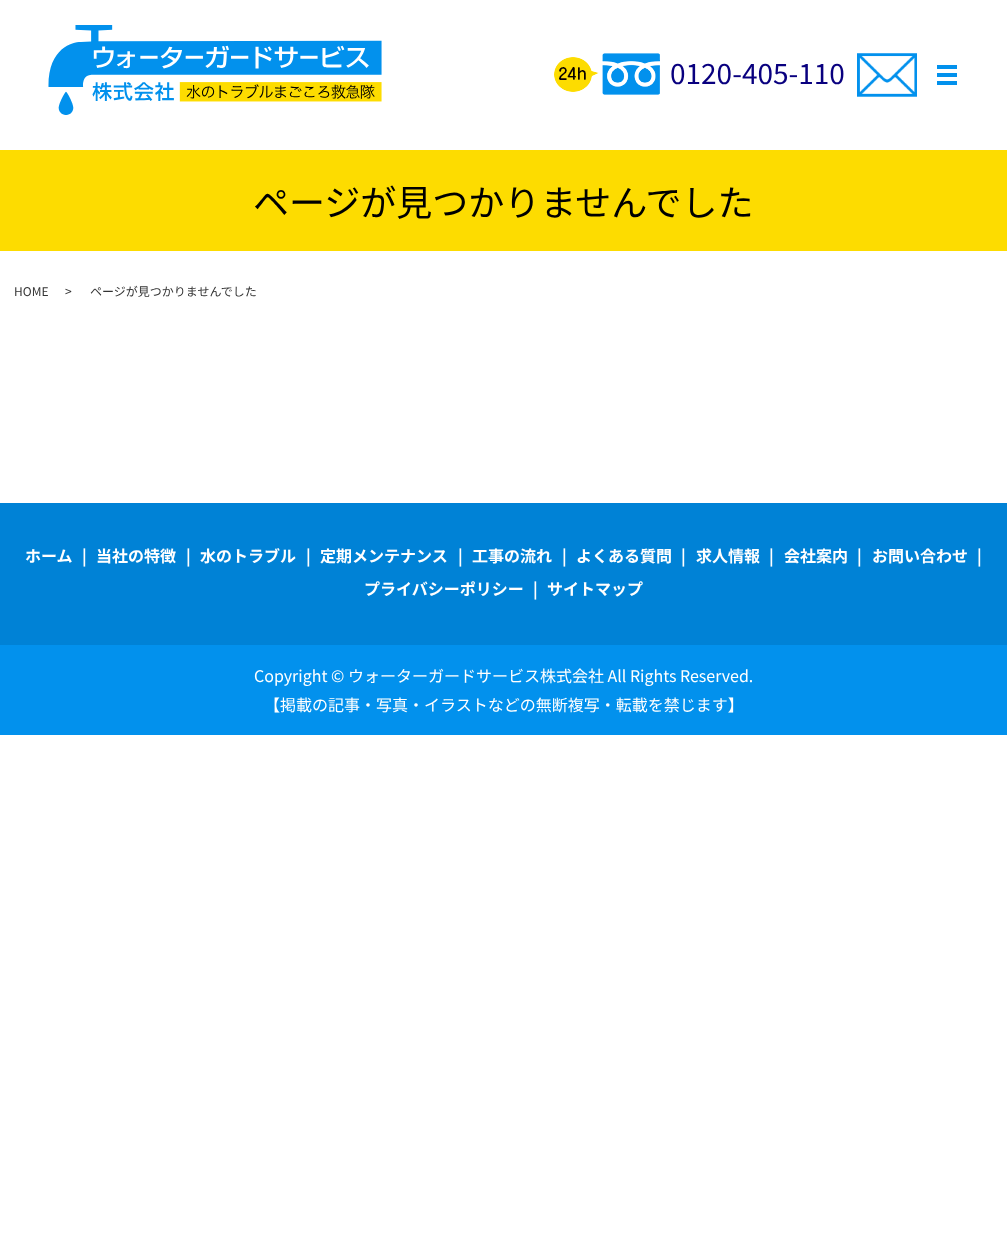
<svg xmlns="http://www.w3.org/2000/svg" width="1007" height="1249">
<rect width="100%" height="100%" fill="#fff"/>
<image x="48" y="25" width="334" height="90" href="media/1.png"/>
<image x="554" y="53" width="106" height="42" href="media/2.png"/>
<text x="670" y="84" style="font-family:Noto Sans JP;font-size:28px;fill:#09007f">0120-405-110</text>
<image x="857" y="53" width="60" height="44" href="media/3.png"/>
<rect x="937" y="65" width="20" height="4" fill="#0291ed"/>
<rect x="937" y="73" width="20" height="4" fill="#0291ed"/>
<rect x="937" y="81" width="20" height="4" fill="#0291ed"/>
<rect y="150" width="1007" height="101" fill="#fddc00"/>
<text x="253" y="216" style="font-family:Noto Sans JP;font-size:36px;fill:#000">ページが見つかりませんでした</text>
<text x="14" y="296" style="font-family:Noto Sans JP;font-size:12px;fill:#333">HOME</text>
<text x="65" y="296" style="font-family:Noto Sans JP;font-size:12px;fill:#333">&gt;</text>
<text x="90" y="296" style="font-family:Noto Sans JP;font-size:12px;fill:#333">ページが見つかりませんでした</text>
<rect y="503" width="1007" height="142" fill="#0082d6"/>
<text x="82" y="562" style="font-family:Noto Sans JP;font-size:16px;font-weight:bold;fill:#fff">|</text>
<text x="96" y="562" style="font-family:Noto Sans JP;font-size:16px;font-weight:bold;fill:#fff">当社の特徴</text>
<text x="186" y="562" style="font-family:Noto Sans JP;font-size:16px;font-weight:bold;fill:#fff">|</text>
<text x="200" y="562" style="font-family:Noto Sans JP;font-size:16px;font-weight:bold;fill:#fff">水のトラブル</text>
<text x="306" y="562" style="font-family:Noto Sans JP;font-size:16px;font-weight:bold;fill:#fff">|</text>
<text x="320" y="562" style="font-family:Noto Sans JP;font-size:16px;font-weight:bold;fill:#fff">定期メンテナンス</text>
<text x="977" y="562" style="font-family:Noto Sans JP;font-size:16px;font-weight:bold;fill:#fff">|</text>
<text x="364" y="595" style="font-family:Noto Sans JP;font-size:16px;font-weight:bold;fill:#fff">プライバシーポリシー</text>
<text x="25" y="562" style="font-family:Noto Sans JP;font-size:16px;font-weight:bold;fill:#fff">ホーム</text>
<text x="458" y="562" style="font-family:Noto Sans JP;font-size:16px;font-weight:bold;fill:#fff">|</text>
<text x="472" y="562" style="font-family:Noto Sans JP;font-size:16px;font-weight:bold;fill:#fff">工事の流れ</text>
<text x="562" y="562" style="font-family:Noto Sans JP;font-size:16px;font-weight:bold;fill:#fff">|</text>
<text x="576" y="562" style="font-family:Noto Sans JP;font-size:16px;font-weight:bold;fill:#fff">よくある質問</text>
<text x="681" y="562" style="font-family:Noto Sans JP;font-size:16px;font-weight:bold;fill:#fff">|</text>
<text x="696" y="562" style="font-family:Noto Sans JP;font-size:16px;font-weight:bold;fill:#fff">求人情報</text>
<text x="769" y="562" style="font-family:Noto Sans JP;font-size:16px;font-weight:bold;fill:#fff">|</text>
<text x="784" y="562" style="font-family:Noto Sans JP;font-size:16px;font-weight:bold;fill:#fff">会社案内</text>
<text x="857" y="562" style="font-family:Noto Sans JP;font-size:16px;font-weight:bold;fill:#fff">|</text>
<text x="872" y="562" style="font-family:Noto Sans JP;font-size:16px;font-weight:bold;fill:#fff">お問い合わせ</text>
<text x="533" y="595" style="font-family:Noto Sans JP;font-size:16px;font-weight:bold;fill:#fff">|</text>
<text x="547" y="595" style="font-family:Noto Sans JP;font-size:16px;font-weight:bold;fill:#fff">サイトマップ</text>
<rect y="645" width="1007" height="90" fill="#0291ed"/>
<text x="254" y="682" style="font-family:Noto Sans JP;font-size:16px;fill:#fff">Copyright © ウォーターガードサービス株式会社 All Rights Reserved.</text>
<text x="264" y="711" style="font-family:Noto Sans JP;font-size:16px;fill:#fff">【掲載の記事・写真・イラストなどの無断複写・転載を禁じます】</text>
</svg>
